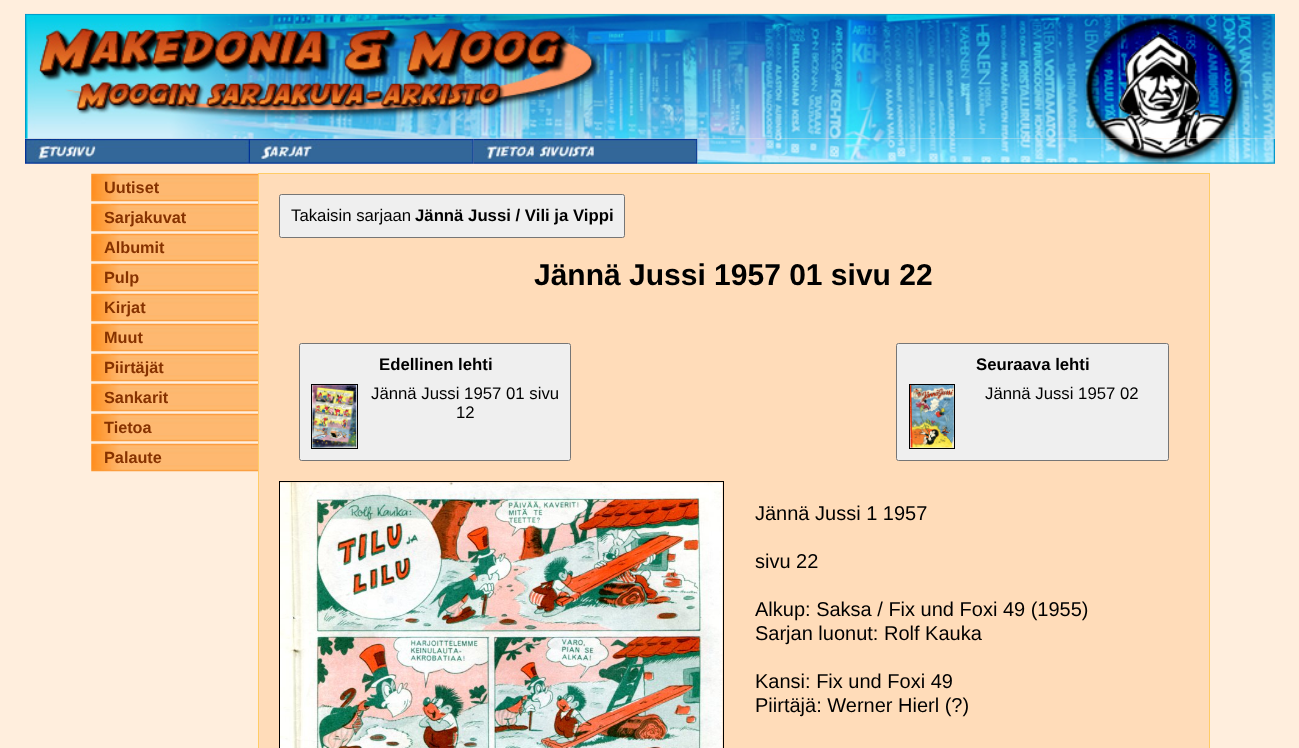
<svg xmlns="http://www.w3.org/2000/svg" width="1299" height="748">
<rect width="100%" height="100%" fill="#fed"/>
<image x="25" y="138" width="225" height="26" href="media/2.png"/>
<image x="250" y="138" width="224" height="26" href="media/3.png"/>
<image x="473" y="138" width="225" height="26" href="media/4.png"/>
<image x="697" y="138" width="578" height="26" href="media/5.png"/>
<image x="25" y="13" width="1250" height="126" href="media/1.png"/>
<image x="91" y="173" width="167" height="29" href="media/6.png"/>
<text x="104" y="193" style="font-family:Liberation Sans;font-size:16.25px;font-weight:bold;fill:#863200">Uutiset</text>
<image x="91" y="203" width="167" height="29" href="media/6.png"/>
<text x="104" y="223" style="font-family:Liberation Sans;font-size:16.25px;font-weight:bold;fill:#863200">Sarjakuvat</text>
<image x="91" y="233" width="167" height="29" href="media/6.png"/>
<text x="104" y="253" style="font-family:Liberation Sans;font-size:16.25px;font-weight:bold;fill:#863200">Albumit</text>
<image x="91" y="263" width="167" height="29" href="media/6.png"/>
<text x="104" y="283" style="font-family:Liberation Sans;font-size:16.25px;font-weight:bold;fill:#863200">Pulp</text>
<image x="91" y="293" width="167" height="29" href="media/7.png"/>
<text x="104" y="313" style="font-family:Liberation Sans;font-size:16.25px;font-weight:bold;fill:#863200">Kirjat</text>
<image x="91" y="323" width="167" height="29" href="media/6.png"/>
<text x="104" y="343" style="font-family:Liberation Sans;font-size:16.25px;font-weight:bold;fill:#863200">Muut</text>
<image x="91" y="353" width="167" height="29" href="media/6.png"/>
<text x="104" y="373" style="font-family:Liberation Sans;font-size:16.25px;font-weight:bold;fill:#863200">Piirtäjät</text>
<image x="91" y="383" width="167" height="29" href="media/6.png"/>
<text x="104" y="403" style="font-family:Liberation Sans;font-size:16.25px;font-weight:bold;fill:#863200">Sankarit</text>
<image x="91" y="413" width="167" height="29" href="media/6.png"/>
<text x="104" y="433" style="font-family:Liberation Sans;font-size:16.25px;font-weight:bold;fill:#863200">Tietoa</text>
<image x="91" y="443" width="167" height="29" href="media/6.png"/>
<text x="104" y="463" style="font-family:Liberation Sans;font-size:16.25px;font-weight:bold;fill:#863200">Palaute</text>
<rect x="258.5" y="173.5" width="951" height="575" fill="#ffdcb9" stroke="#fc6"/>
<rect x="279.5" y="194.5" width="345" height="43" rx="2" fill="#efefef" stroke="#767676"/>
<text x="291" y="221" style="font-family:Liberation Sans;font-size:16.75px;fill:#000">Takaisin sarjaan</text>
<text x="415" y="221" style="font-family:Liberation Sans;font-size:16.75px;font-weight:bold;fill:#000">Jännä Jussi / Vili ja Vippi</text>
<text x="534" y="285" style="font-family:Liberation Sans;font-size:30px;font-weight:bold;fill:#000">Jännä Jussi 1957 01 sivu 22</text>
<rect x="299.5" y="343.5" width="271" height="117" rx="2" fill="#efefef" stroke="#767676"/>
<text x="379" y="370" style="font-family:Liberation Sans;font-size:16.75px;font-weight:bold;fill:#000">Edellinen lehti</text>
<rect x="311.5" y="384.5" width="46" height="64" fill="none" stroke="#000"/>
<image x="312" y="385" width="45" height="63" href="media/8.png"/>
<text x="371" y="399" style="font-family:Liberation Sans;font-size:16.75px;fill:#000">Jännä Jussi 1957 01 sivu</text>
<text x="456" y="418" style="font-family:Liberation Sans;font-size:16.75px;fill:#000">12</text>
<rect x="896.5" y="343.5" width="272" height="117" rx="2" fill="#efefef" stroke="#767676"/>
<text x="976" y="370" style="font-family:Liberation Sans;font-size:16.75px;font-weight:bold;fill:#000">Seuraava lehti</text>
<rect x="909.5" y="384.5" width="45" height="64" fill="none" stroke="#000"/>
<image x="910" y="385" width="44" height="63" href="media/9.png"/>
<text x="985" y="399" style="font-family:Liberation Sans;font-size:16.75px;fill:#000">Jännä Jussi 1957 02</text>
<rect x="279.5" y="481.5" width="444" height="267" fill="none" stroke="#000"/>
<image x="280" y="482" width="443" height="266" href="media/10.png"/>
<text x="755" y="520" style="font-family:Liberation Sans;font-size:20px;fill:#000">Jännä Jussi 1 1957</text>
<text x="755" y="568" style="font-family:Liberation Sans;font-size:20px;fill:#000">sivu 22</text>
<text x="755" y="616" style="font-family:Liberation Sans;font-size:20px;fill:#000">Alkup: Saksa / Fix und Foxi 49 (1955)</text>
<text x="755" y="640" style="font-family:Liberation Sans;font-size:20px;fill:#000">Sarjan luonut: Rolf Kauka</text>
<text x="755" y="688" style="font-family:Liberation Sans;font-size:20px;fill:#000">Kansi: Fix und Foxi 49</text>
<text x="755" y="712" style="font-family:Liberation Sans;font-size:20px;fill:#000">Piirtäjä: Werner Hierl (?)</text>
</svg>
